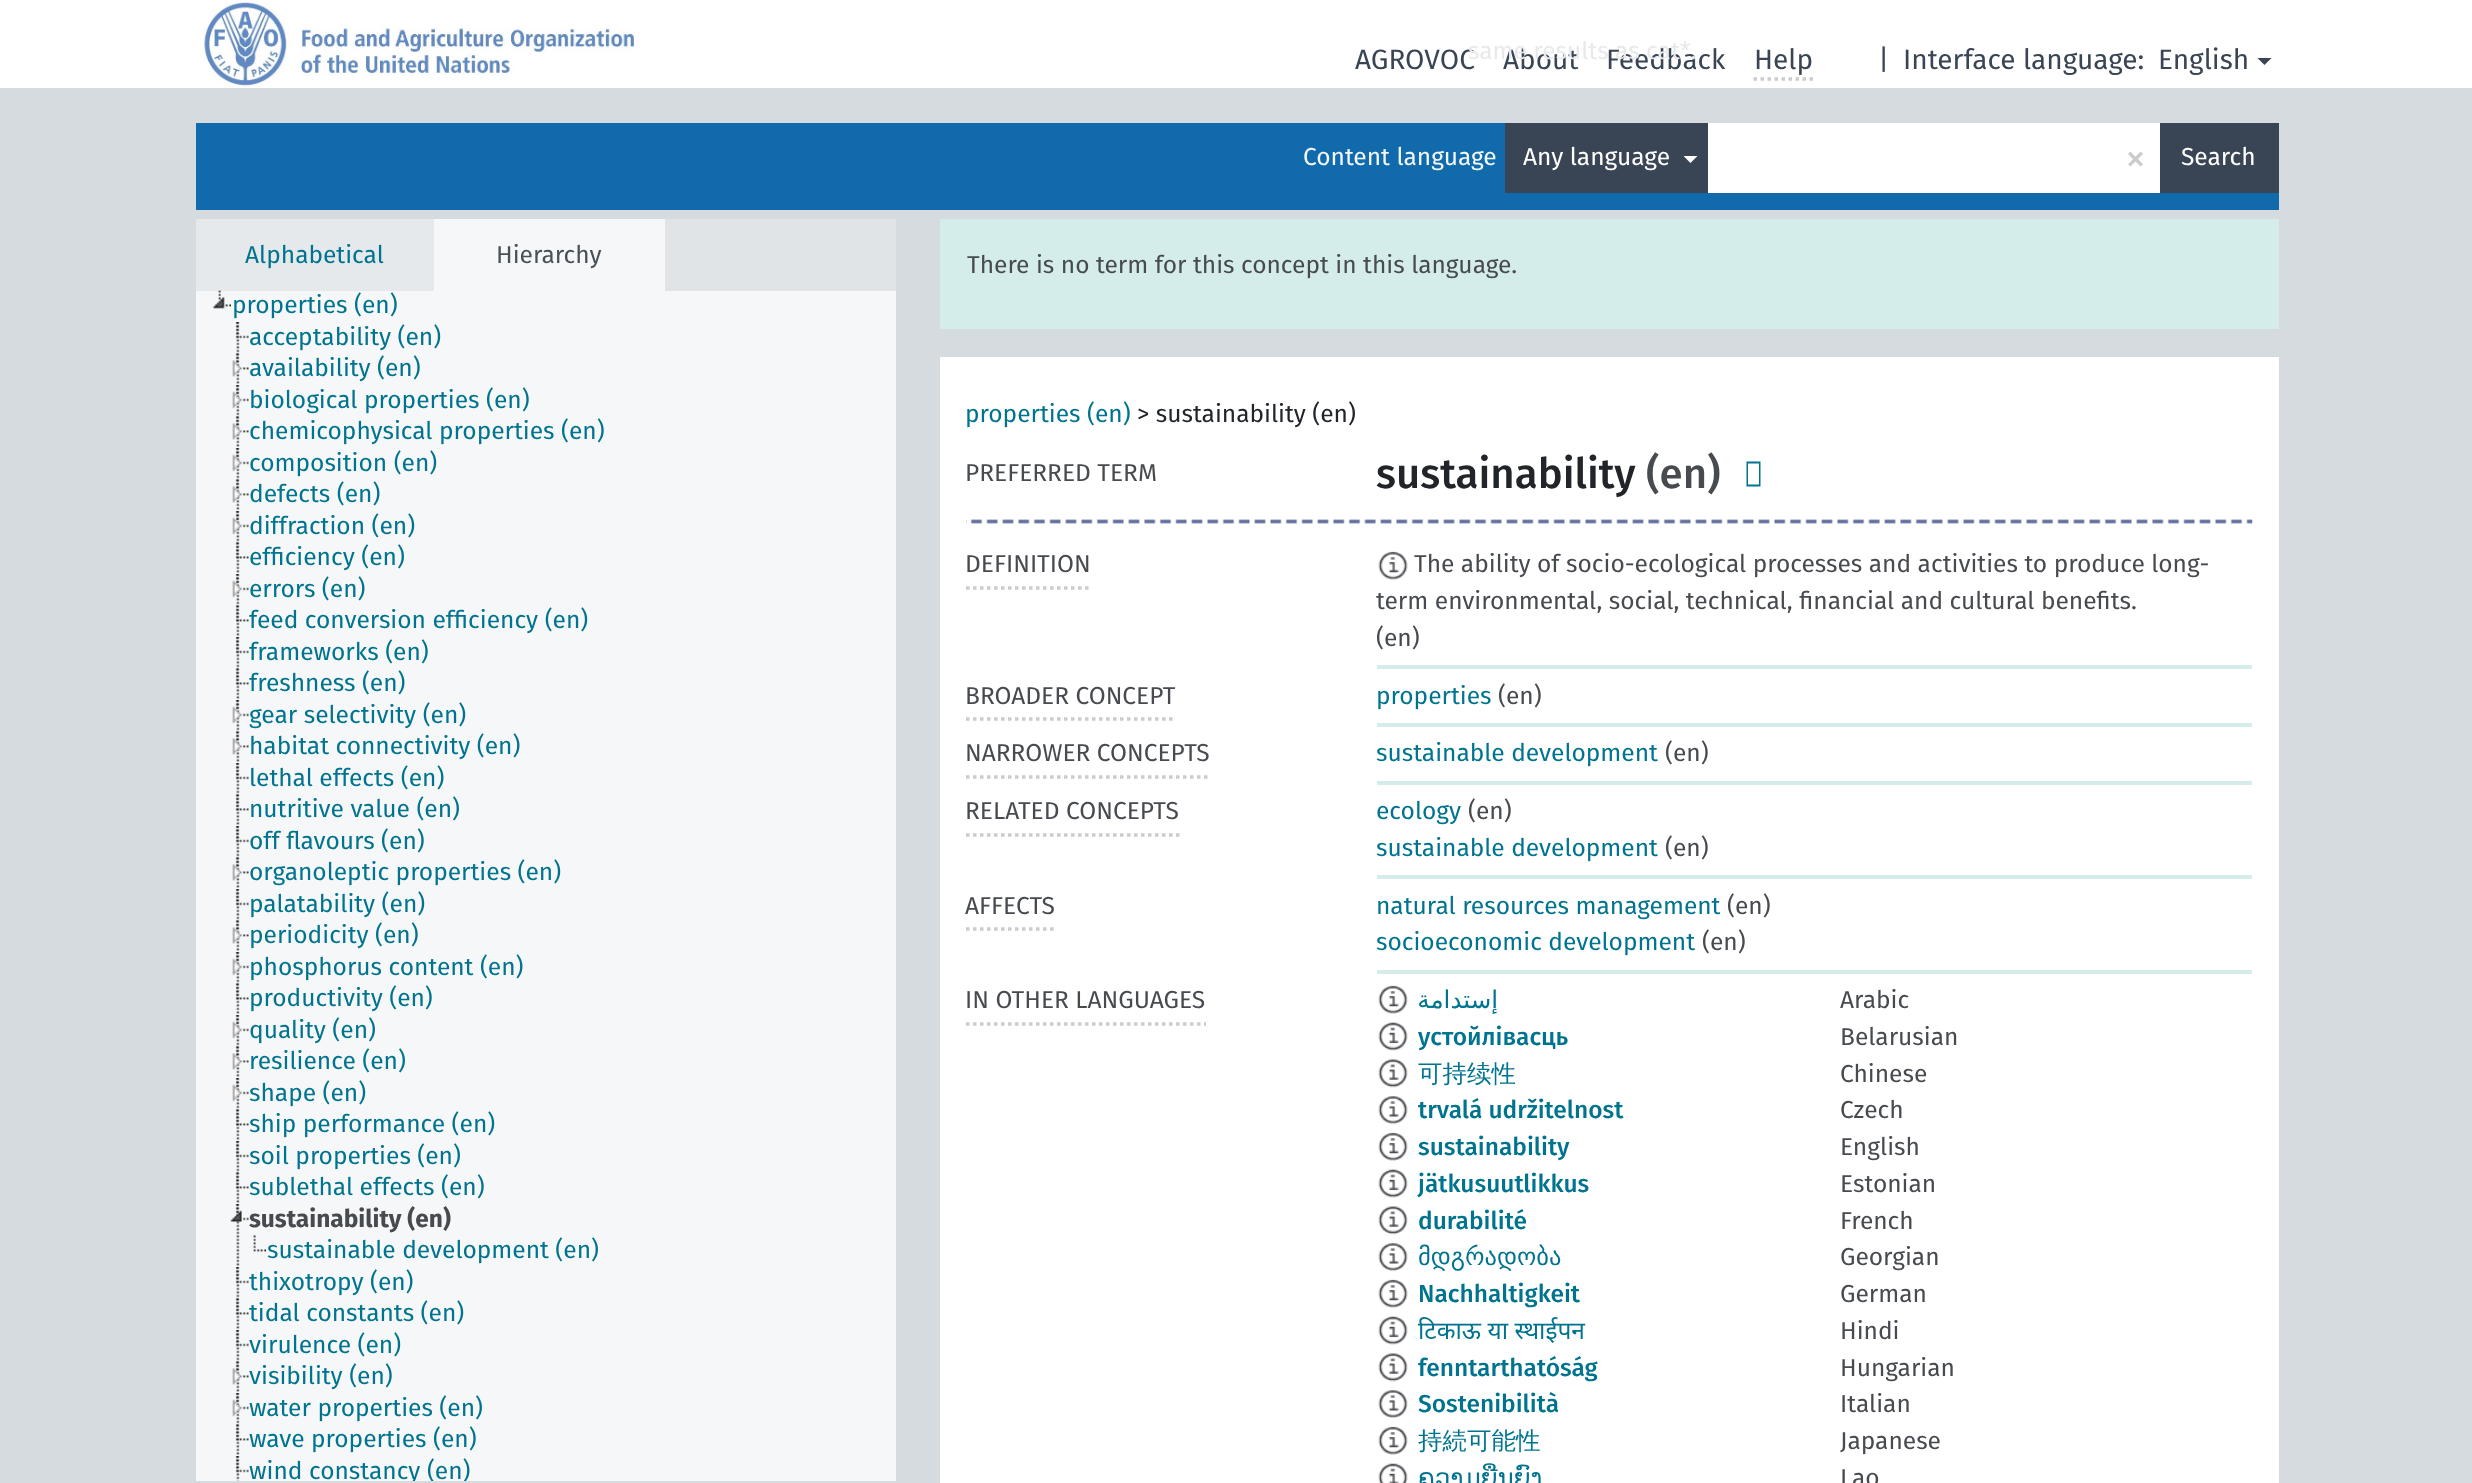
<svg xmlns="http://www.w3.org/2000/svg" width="2472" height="1483">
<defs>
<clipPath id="clip1"><rect x="196" y="291" width="700" height="1190"/></clipPath>
</defs>
<rect width="100%" height="100%" fill="#d5dbde"/>
<rect width="2472" height="88" fill="#fff"/>
<image x="203" y="1" width="432" height="86" href="media/1.png"/>
<text x="1355" y="69" style="font-family:Fira Sans;font-size:28px;fill:#394554">AGROVOC</text>
<text x="1503" y="69" style="font-family:Fira Sans;font-size:28px;fill:#394554">About</text>
<text x="1606" y="69" style="font-family:Fira Sans;font-size:28px;fill:#394554">Feedback</text>
<text x="1468" y="59" style="font-family:Fira Sans;font-size:24.5px;fill:#e7e9eb">same results as cat*.</text>
<text x="1754" y="69" style="font-family:Fira Sans;font-size:28px;fill:#394554">Help</text>
<path d="M1753.5 79h59.5" fill="none" stroke="#ccc" stroke-width="3.5" stroke-dasharray="3.5 3.5"/>
<text x="1878" y="69" style="font-family:Fira Sans;font-size:28px;fill:#394554">|</text>
<text x="1903" y="69" style="font-family:Fira Sans;font-size:28px;fill:#394554">Interface language:</text>
<text x="2158" y="69" style="font-family:Fira Sans;font-size:28px;fill:#394554">English</text>
<path d="M2257.5 58h14l-7 7z" fill="#394554"/>
<rect x="196" y="123" width="2083" height="87" fill="#116aab"/>
<text x="1303" y="165" style="font-family:Fira Sans;font-size:24.5px;fill:#f3f8fb">Content language</text>
<rect x="1505" y="123" width="203" height="70" fill="#394554"/>
<text x="1523" y="165" style="font-family:Fira Sans;font-size:24.5px;fill:#fff">Any language</text>
<path d="M1683.5 156h14l-7 7z" fill="#fff"/>
<rect x="1708" y="123" width="452" height="70" fill="#fff"/>
<text x="2125" y="172" style="font-family:Fira Sans;font-size:42px;fill:#ccc">×</text>
<rect x="2160" y="123" width="119" height="70" fill="#394554"/>
<text x="2181" y="165" style="font-family:Fira Sans;font-size:24.5px;fill:#fff">Search</text>
<rect x="665" y="219" width="231" height="72" fill="#e0e4e7"/>
<rect x="196" y="219" width="238" height="72" fill="#e6e9eb"/>
<text x="245" y="263" style="font-family:Fira Sans;font-size:24.5px;fill:#00748f">Alphabetical</text>
<rect x="434" y="219" width="231" height="72" fill="#f6f7f8"/>
<text x="496" y="263" style="font-family:Fira Sans;font-size:24.5px;fill:#495057">Hierarchy</text>
<rect x="196" y="291" width="700" height="1190" fill="#f6f7f8"/>
<image x="213" y="290" width="18" height="19" href="media/2.png"/>
<text x="232" y="313" style="font-family:Fira Sans;font-size:24.5px;fill:#00748f">properties (en)</text>
<image x="236" y="322" width="4" height="31" href="media/3.png"/>
<image x="235" y="322" width="14" height="17" href="media/4.png"/>
<text x="249" y="345" style="font-family:Fira Sans;font-size:24.5px;fill:#00748f">acceptability (en)</text>
<image x="236" y="353" width="4" height="31" href="media/5.png"/>
<image x="232" y="353" width="17" height="24" href="media/6.png"/>
<text x="249" y="376" style="font-family:Fira Sans;font-size:24.5px;fill:#00748f">availability (en)</text>
<image x="236" y="385" width="4" height="31" href="media/3.png"/>
<image x="232" y="385" width="17" height="24" href="media/7.png"/>
<text x="249" y="408" style="font-family:Fira Sans;font-size:24.5px;fill:#00748f">biological properties (en)</text>
<image x="236" y="416" width="4" height="31" href="media/5.png"/>
<image x="232" y="416" width="17" height="24" href="media/6.png"/>
<text x="249" y="439" style="font-family:Fira Sans;font-size:24.5px;fill:#00748f">chemicophysical properties (en)</text>
<image x="236" y="448" width="4" height="31" href="media/3.png"/>
<image x="232" y="448" width="17" height="24" href="media/7.png"/>
<text x="249" y="471" style="font-family:Fira Sans;font-size:24.5px;fill:#00748f">composition (en)</text>
<image x="236" y="479" width="4" height="31" href="media/5.png"/>
<image x="232" y="479" width="17" height="24" href="media/6.png"/>
<text x="249" y="502" style="font-family:Fira Sans;font-size:24.5px;fill:#00748f">defects (en)</text>
<image x="236" y="511" width="4" height="31" href="media/3.png"/>
<image x="232" y="511" width="17" height="24" href="media/7.png"/>
<text x="249" y="534" style="font-family:Fira Sans;font-size:24.5px;fill:#00748f">diffraction (en)</text>
<image x="236" y="542" width="4" height="31" href="media/5.png"/>
<image x="235" y="542" width="14" height="17" href="media/8.png"/>
<text x="249" y="565" style="font-family:Fira Sans;font-size:24.5px;fill:#00748f">efficiency (en)</text>
<image x="236" y="574" width="4" height="31" href="media/3.png"/>
<image x="232" y="574" width="17" height="24" href="media/7.png"/>
<text x="249" y="597" style="font-family:Fira Sans;font-size:24.5px;fill:#00748f">errors (en)</text>
<image x="236" y="605" width="4" height="31" href="media/5.png"/>
<image x="235" y="605" width="14" height="17" href="media/8.png"/>
<text x="249" y="628" style="font-family:Fira Sans;font-size:24.5px;fill:#00748f">feed conversion efficiency (en)</text>
<image x="236" y="637" width="4" height="31" href="media/3.png"/>
<image x="235" y="637" width="14" height="17" href="media/4.png"/>
<text x="249" y="660" style="font-family:Fira Sans;font-size:24.5px;fill:#00748f">frameworks (en)</text>
<image x="236" y="668" width="4" height="31" href="media/5.png"/>
<image x="235" y="668" width="14" height="17" href="media/8.png"/>
<text x="249" y="691" style="font-family:Fira Sans;font-size:24.5px;fill:#00748f">freshness (en)</text>
<image x="236" y="700" width="4" height="31" href="media/3.png"/>
<image x="232" y="700" width="17" height="24" href="media/7.png"/>
<text x="249" y="723" style="font-family:Fira Sans;font-size:24.5px;fill:#00748f">gear selectivity (en)</text>
<image x="236" y="731" width="4" height="31" href="media/5.png"/>
<image x="232" y="731" width="17" height="24" href="media/6.png"/>
<text x="249" y="754" style="font-family:Fira Sans;font-size:24.5px;fill:#00748f">habitat connectivity (en)</text>
<image x="236" y="763" width="4" height="31" href="media/3.png"/>
<image x="235" y="763" width="14" height="17" href="media/4.png"/>
<text x="249" y="786" style="font-family:Fira Sans;font-size:24.5px;fill:#00748f">lethal effects (en)</text>
<image x="236" y="794" width="4" height="31" href="media/5.png"/>
<image x="235" y="794" width="14" height="17" href="media/8.png"/>
<text x="249" y="817" style="font-family:Fira Sans;font-size:24.5px;fill:#00748f">nutritive value (en)</text>
<image x="236" y="826" width="4" height="31" href="media/3.png"/>
<image x="235" y="826" width="14" height="17" href="media/4.png"/>
<text x="249" y="849" style="font-family:Fira Sans;font-size:24.5px;fill:#00748f">off flavours (en)</text>
<image x="236" y="857" width="4" height="31" href="media/5.png"/>
<image x="232" y="857" width="17" height="24" href="media/6.png"/>
<text x="249" y="880" style="font-family:Fira Sans;font-size:24.5px;fill:#00748f">organoleptic properties (en)</text>
<image x="236" y="889" width="4" height="31" href="media/3.png"/>
<image x="235" y="889" width="14" height="17" href="media/4.png"/>
<text x="249" y="912" style="font-family:Fira Sans;font-size:24.5px;fill:#00748f">palatability (en)</text>
<image x="236" y="920" width="4" height="31" href="media/5.png"/>
<image x="232" y="920" width="17" height="24" href="media/6.png"/>
<text x="249" y="943" style="font-family:Fira Sans;font-size:24.5px;fill:#00748f">periodicity (en)</text>
<image x="236" y="952" width="4" height="31" href="media/3.png"/>
<image x="232" y="952" width="17" height="24" href="media/7.png"/>
<text x="249" y="975" style="font-family:Fira Sans;font-size:24.5px;fill:#00748f">phosphorus content (en)</text>
<image x="236" y="983" width="4" height="31" href="media/5.png"/>
<image x="235" y="983" width="14" height="17" href="media/8.png"/>
<text x="249" y="1006" style="font-family:Fira Sans;font-size:24.5px;fill:#00748f">productivity (en)</text>
<image x="236" y="1015" width="4" height="31" href="media/3.png"/>
<image x="232" y="1015" width="17" height="24" href="media/7.png"/>
<text x="249" y="1038" style="font-family:Fira Sans;font-size:24.5px;fill:#00748f">quality (en)</text>
<image x="236" y="1046" width="4" height="31" href="media/5.png"/>
<image x="232" y="1046" width="17" height="24" href="media/6.png"/>
<text x="249" y="1069" style="font-family:Fira Sans;font-size:24.5px;fill:#00748f">resilience (en)</text>
<image x="236" y="1078" width="4" height="31" href="media/3.png"/>
<image x="232" y="1078" width="17" height="24" href="media/7.png"/>
<text x="249" y="1101" style="font-family:Fira Sans;font-size:24.5px;fill:#00748f">shape (en)</text>
<image x="236" y="1109" width="4" height="31" href="media/5.png"/>
<image x="235" y="1109" width="14" height="17" href="media/8.png"/>
<text x="249" y="1132" style="font-family:Fira Sans;font-size:24.5px;fill:#00748f">ship performance (en)</text>
<image x="236" y="1141" width="4" height="31" href="media/3.png"/>
<image x="235" y="1141" width="14" height="17" href="media/4.png"/>
<text x="249" y="1164" style="font-family:Fira Sans;font-size:24.5px;fill:#00748f">soil properties (en)</text>
<image x="236" y="1172" width="4" height="31" href="media/5.png"/>
<image x="235" y="1172" width="14" height="17" href="media/8.png"/>
<text x="249" y="1195" style="font-family:Fira Sans;font-size:24.5px;fill:#00748f">sublethal effects (en)</text>
<image x="236" y="1204" width="4" height="62" href="media/9.png"/>
<image x="230" y="1204" width="19" height="18" href="media/10.png"/>
<text x="249" y="1227" style="font-family:Fira Sans;font-size:24.5px;font-weight:bold;fill:#474b4f">sustainability (en)</text>
<image x="253" y="1235" width="13" height="17" href="media/11.png"/>
<text x="267" y="1258" style="font-family:Fira Sans;font-size:24.5px;fill:#00748f">sustainable development (en)</text>
<image x="236" y="1267" width="4" height="31" href="media/3.png"/>
<image x="235" y="1267" width="14" height="17" href="media/4.png"/>
<text x="249" y="1290" style="font-family:Fira Sans;font-size:24.5px;fill:#00748f">thixotropy (en)</text>
<image x="236" y="1298" width="4" height="31" href="media/5.png"/>
<image x="235" y="1298" width="14" height="17" href="media/8.png"/>
<text x="249" y="1321" style="font-family:Fira Sans;font-size:24.5px;fill:#00748f">tidal constants (en)</text>
<image x="236" y="1330" width="4" height="31" href="media/3.png"/>
<image x="235" y="1330" width="14" height="17" href="media/4.png"/>
<text x="249" y="1353" style="font-family:Fira Sans;font-size:24.5px;fill:#00748f">virulence (en)</text>
<image x="236" y="1361" width="4" height="31" href="media/5.png"/>
<image x="232" y="1361" width="17" height="24" href="media/6.png"/>
<text x="249" y="1384" style="font-family:Fira Sans;font-size:24.5px;fill:#00748f">visibility (en)</text>
<image x="236" y="1393" width="4" height="31" href="media/3.png"/>
<image x="232" y="1393" width="17" height="24" href="media/7.png"/>
<text x="249" y="1416" style="font-family:Fira Sans;font-size:24.5px;fill:#00748f">water properties (en)</text>
<image x="236" y="1424" width="4" height="31" href="media/5.png"/>
<image x="235" y="1424" width="14" height="17" href="media/8.png"/>
<text x="249" y="1447" style="font-family:Fira Sans;font-size:24.5px;fill:#00748f">wave properties (en)</text>
<image x="236" y="1456" width="4" height="25" href="media/12.png"/>
<image x="235" y="1456" width="14" height="17" href="media/4.png"/>
<g clip-path="url(#clip1)">
<text x="249" y="1479" style="font-family:Fira Sans;font-size:24.5px;fill:#00748f">wind constancy (en)</text>
</g>
<rect x="940" y="219" width="1339" height="110" fill="#d4edeb"/>
<text x="967" y="273" style="font-family:Fira Sans;font-size:24.5px;fill:#474b4f">There is no term for this concept in this language.</text>
<rect x="940" y="357" width="1339" height="1126" fill="#fff"/>
<text x="965" y="422" style="font-family:Fira Sans;font-size:24.5px;fill:#00748f">properties (en)</text>
<text x="1137" y="422" style="font-family:Fira Sans;font-size:24.5px;fill:#212529">&gt; sustainability (en)</text>
<text x="965" y="481" style="font-family:Fira Sans;font-size:24.5px;fill:#474b4f">PREFERRED TERM</text>
<text x="1376" y="488" style="font-family:Fira Sans;font-size:42px;font-weight:500;fill:#212529">sustainability</text>
<text x="1646" y="488" style="font-family:Fira Sans;font-size:42px;font-weight:500;fill:#474b4f">(en)</text>
<path d="M1746.5 486.5v-25h14v25zm1.5-2h11v-21h-11z" fill="#00748f"/>
<image x="966" y="519" width="1287" height="5" href="media/13.png"/>
<path d="M966 588h124" fill="none" stroke="#ccc" stroke-width="3.5" stroke-dasharray="3.5 3.5"/>
<text x="965" y="572" style="font-family:Fira Sans;font-size:24.5px;fill:#474b4f">DEFINITION</text>
<rect x="1377" y="665" width="875" height="4" fill="#d4edeb"/>
<image x="1378" y="551" width="30" height="29" href="media/14.png"/>
<text x="1414" y="572" style="font-family:Fira Sans;font-size:24.5px;fill:#474b4f">The ability of socio-ecological processes and activities to produce long-</text>
<text x="1376" y="609" style="font-family:Fira Sans;font-size:24.5px;fill:#474b4f">term environmental, social, technical, financial and cultural benefits.</text>
<text x="1376" y="646" style="font-family:Fira Sans;font-size:24.5px;fill:#474b4f">(en)</text>
<path d="M966 719h210" fill="none" stroke="#ccc" stroke-width="3.5" stroke-dasharray="3.5 3.5"/>
<text x="965" y="704" style="font-family:Fira Sans;font-size:24.5px;fill:#474b4f">BROADER CONCEPT</text>
<rect x="1377" y="723" width="875" height="4" fill="#d4edeb"/>
<text x="1376" y="704" style="font-family:Fira Sans;font-size:24.5px;fill:#00748f">properties</text>
<text x="1498" y="704" style="font-family:Fira Sans;font-size:24.5px;fill:#474b4f">(en)</text>
<path d="M966 777h243" fill="none" stroke="#ccc" stroke-width="3.5" stroke-dasharray="3.5 3.5"/>
<text x="965" y="761" style="font-family:Fira Sans;font-size:24.5px;fill:#474b4f">NARROWER CONCEPTS</text>
<rect x="1377" y="781" width="875" height="4" fill="#d4edeb"/>
<text x="1376" y="761" style="font-family:Fira Sans;font-size:24.5px;fill:#00748f">sustainable development</text>
<text x="1665" y="761" style="font-family:Fira Sans;font-size:24.5px;fill:#474b4f">(en)</text>
<path d="M966 835h213.5" fill="none" stroke="#ccc" stroke-width="3.5" stroke-dasharray="3.5 3.5"/>
<text x="965" y="819" style="font-family:Fira Sans;font-size:24.5px;fill:#474b4f">RELATED CONCEPTS</text>
<rect x="1377" y="875" width="875" height="4" fill="#d4edeb"/>
<text x="1376" y="819" style="font-family:Fira Sans;font-size:24.5px;fill:#00748f">ecology</text>
<text x="1468" y="819" style="font-family:Fira Sans;font-size:24.5px;fill:#474b4f">(en)</text>
<text x="1376" y="856" style="font-family:Fira Sans;font-size:24.5px;fill:#00748f">sustainable development</text>
<text x="1665" y="856" style="font-family:Fira Sans;font-size:24.5px;fill:#474b4f">(en)</text>
<path d="M966 929h89" fill="none" stroke="#ccc" stroke-width="3.5" stroke-dasharray="3.5 3.5"/>
<text x="965" y="914" style="font-family:Fira Sans;font-size:24.5px;fill:#474b4f">AFFECTS</text>
<rect x="1377" y="970" width="875" height="4" fill="#d4edeb"/>
<text x="1376" y="914" style="font-family:Fira Sans;font-size:24.5px;fill:#00748f">natural resources management</text>
<text x="1727" y="914" style="font-family:Fira Sans;font-size:24.5px;fill:#474b4f">(en)</text>
<text x="1376" y="950" style="font-family:Fira Sans;font-size:24.5px;fill:#00748f">socioeconomic development</text>
<text x="1702" y="950" style="font-family:Fira Sans;font-size:24.5px;fill:#474b4f">(en)</text>
<path d="M966 1024h240" fill="none" stroke="#ccc" stroke-width="3.5" stroke-dasharray="3.5 3.5"/>
<text x="965" y="1008" style="font-family:Fira Sans;font-size:24.5px;fill:#474b4f">IN OTHER LANGUAGES</text>
<image x="1378" y="985" width="30" height="29" href="media/14.png"/>
<text x="1498" y="1008" style="font-family:DejaVu Sans;font-size:24.5px;direction:rtl;fill:#00748f">إستدامة</text>
<text x="1840" y="1008" style="font-family:Fira Sans;font-size:24.5px;fill:#474b4f">Arabic</text>
<image x="1378" y="1022" width="30" height="29" href="media/15.png"/>
<text x="1418" y="1045" style="font-family:Fira Sans;font-size:24.5px;font-weight:500;fill:#00748f">устойлівасць</text>
<text x="1840" y="1045" style="font-family:Fira Sans;font-size:24.5px;fill:#474b4f">Belarusian</text>
<image x="1378" y="1059" width="30" height="29" href="media/16.png"/>
<text x="1418" y="1082" style="font-family:WenQuanYi Zen Hei;font-size:24.5px;font-weight:500;fill:#00748f">可持续性</text>
<text x="1840" y="1082" style="font-family:Fira Sans;font-size:24.5px;fill:#474b4f">Chinese</text>
<image x="1378" y="1096" width="30" height="29" href="media/17.png"/>
<text x="1418" y="1118" style="font-family:Fira Sans;font-size:24.5px;font-weight:500;fill:#00748f">trvalá udržitelnost</text>
<text x="1840" y="1118" style="font-family:Fira Sans;font-size:24.5px;fill:#474b4f">Czech</text>
<image x="1378" y="1132" width="30" height="29" href="media/14.png"/>
<text x="1418" y="1155" style="font-family:Fira Sans;font-size:24.5px;font-weight:500;fill:#00748f">sustainability</text>
<text x="1840" y="1155" style="font-family:Fira Sans;font-size:24.5px;fill:#474b4f">English</text>
<image x="1378" y="1169" width="30" height="29" href="media/15.png"/>
<text x="1418" y="1192" style="font-family:Fira Sans;font-size:24.5px;font-weight:500;fill:#00748f">jätkusuutlikkus</text>
<text x="1840" y="1192" style="font-family:Fira Sans;font-size:24.5px;fill:#474b4f">Estonian</text>
<image x="1378" y="1206" width="30" height="29" href="media/16.png"/>
<text x="1418" y="1229" style="font-family:Fira Sans;font-size:24.5px;font-weight:500;fill:#00748f">durabilité</text>
<text x="1840" y="1229" style="font-family:Fira Sans;font-size:24.5px;fill:#474b4f">French</text>
<image x="1378" y="1243" width="30" height="29" href="media/17.png"/>
<text x="1418" y="1265" style="font-family:DejaVu Sans;font-size:24.5px;fill:#00748f">მდგრადობა</text>
<text x="1840" y="1265" style="font-family:Fira Sans;font-size:24.5px;fill:#474b4f">Georgian</text>
<image x="1378" y="1279" width="30" height="29" href="media/14.png"/>
<text x="1418" y="1302" style="font-family:Fira Sans;font-size:24.5px;font-weight:500;fill:#00748f">Nachhaltigkeit</text>
<text x="1840" y="1302" style="font-family:Fira Sans;font-size:24.5px;fill:#474b4f">German</text>
<image x="1378" y="1316" width="30" height="29" href="media/15.png"/>
<text x="1418" y="1339" style="font-family:Noto Sans;font-size:24.5px;fill:#00748f">टिकाऊ या स्थाईपन</text>
<text x="1840" y="1339" style="font-family:Fira Sans;font-size:24.5px;fill:#474b4f">Hindi</text>
<image x="1378" y="1353" width="30" height="29" href="media/16.png"/>
<text x="1418" y="1376" style="font-family:Fira Sans;font-size:24.5px;font-weight:500;fill:#00748f">fenntarthatóság</text>
<text x="1840" y="1376" style="font-family:Fira Sans;font-size:24.5px;fill:#474b4f">Hungarian</text>
<image x="1378" y="1390" width="30" height="29" href="media/17.png"/>
<text x="1418" y="1412" style="font-family:Fira Sans;font-size:24.5px;font-weight:500;fill:#00748f">Sostenibilità</text>
<text x="1840" y="1412" style="font-family:Fira Sans;font-size:24.5px;fill:#474b4f">Italian</text>
<image x="1378" y="1426" width="30" height="29" href="media/14.png"/>
<text x="1418" y="1449" style="font-family:WenQuanYi Zen Hei;font-size:24.5px;font-weight:500;fill:#00748f">持続可能性</text>
<text x="1840" y="1449" style="font-family:Fira Sans;font-size:24.5px;fill:#474b4f">Japanese</text>
<image x="1378" y="1463" width="30" height="20" href="media/18.png"/>
<text x="1418" y="1486" style="font-family:DejaVu Sans;font-size:24.5px;fill:#00748f">ຄວາມຍືນຍົງ</text>
<text x="1840" y="1486" style="font-family:Fira Sans;font-size:24.5px;fill:#474b4f">Lao</text>
</svg>
